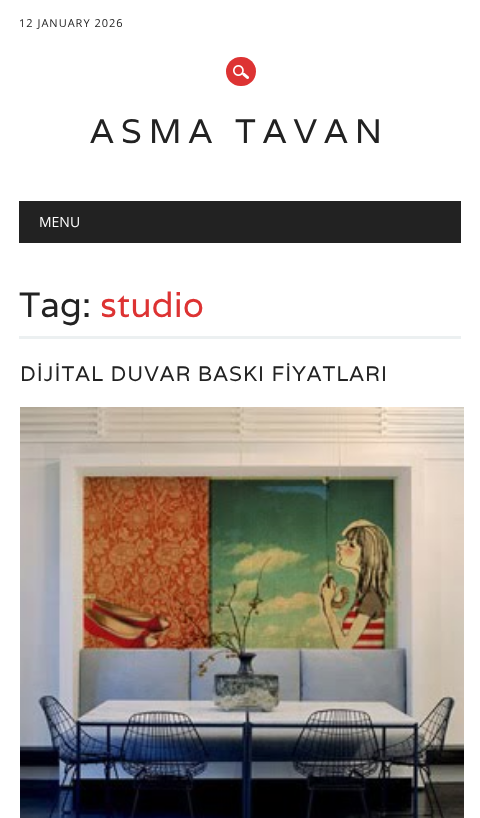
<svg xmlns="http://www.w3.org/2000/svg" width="480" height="818">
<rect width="100%" height="100%" fill="#fff"/>
<text x="19" y="27" style="font-family:Open Sans;font-size:11px;letter-spacing:1px;fill:#222">12 JANUARY 2026</text>
<rect x="226" y="57" width="30" height="29" rx="14.5" fill="#d33"/>
<image x="233" y="65" width="16" height="14" href="media/1.png"/>
<text x="90" y="143" style="font-family:Varela;font-size:34px;letter-spacing:7px;fill:#222">ASMA TAVAN</text>
<rect x="19" y="201" width="442" height="42" fill="#222"/>
<text x="39" y="227" style="font-family:Open Sans;font-size:14px;fill:#fff">MENU</text>
<rect x="19" y="336" width="442" height="3" fill="#ecf0f1"/>
<text x="19" y="317" style="font-family:Varela;font-size:35px;fill:#222">Tag:</text>
<text x="100" y="317" style="font-family:Varela;font-size:35px;fill:#d33">studio</text>
<text x="20" y="381" style="font-family:Varela;font-size:21px;letter-spacing:1px;fill:#222">DİJİTAL DUVAR BASKI FİYATLARI</text>
<image x="20" y="407" width="444" height="411" href="media/2.png"/>
</svg>
